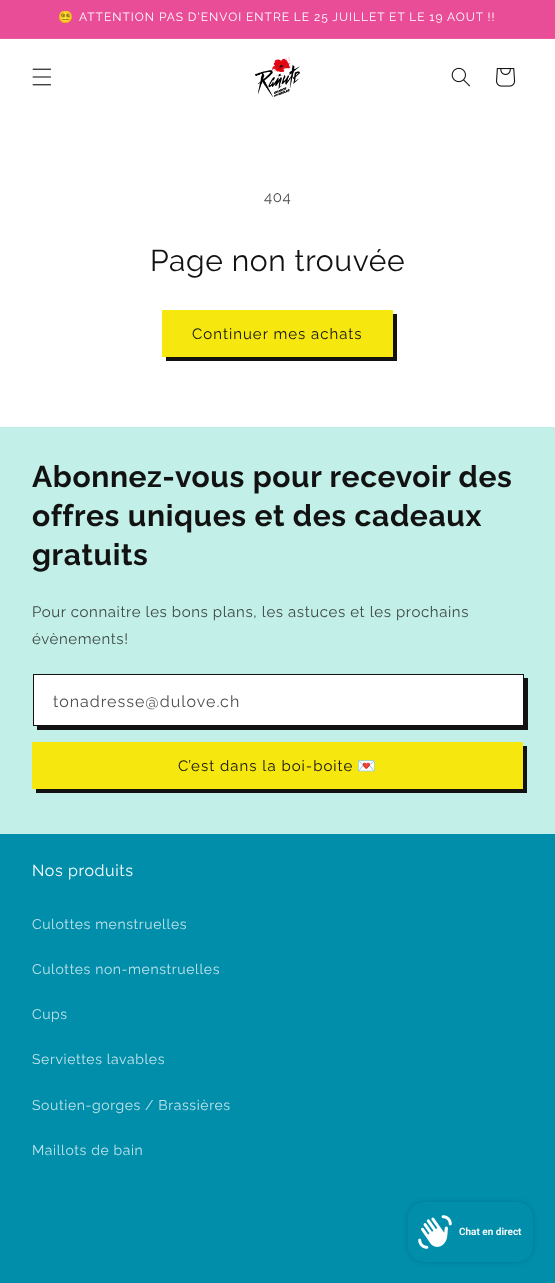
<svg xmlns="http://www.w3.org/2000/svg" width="555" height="1283">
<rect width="100%" height="100%" fill="#fff"/>
<rect width="555" height="38" fill="#e94d97"/>
<rect y="38" width="555" height="1" fill="#eb5b9f"/>
<text x="58" y="21" style="font-family:Noto Color Emoji;font-size:12px;letter-spacing:1px;fill:#fff">😵‍💫</text>
<text x="79" y="21" word-spacing="-0.25" style="font-family:Raleway;font-size:12px;letter-spacing:1px;fill:#fff">ATTENTION PAS D'ENVOI ENTRE LE 25 JUILLET ET LE 19 AOUT !!</text>
<image x="32" y="68" width="20" height="18" href="media/1.png"/>
<image x="255" y="57" width="45" height="40" href="media/2.png"/>
<image x="451" y="67" width="19" height="20" href="media/3.png"/>
<image x="496" y="68" width="20" height="19" href="media/4.png"/>
<text x="264" y="202" style="font-family:Raleway;font-size:15px;letter-spacing:0.6px;fill:#4d4d4d">404</text>
<text x="150" y="271" style="font-family:Raleway;font-size:30px;letter-spacing:0.6px;fill:#121212">Page non trouvée</text>
<path d="M166 357v4h231v-47h-4v43z" fill="#121212"/>
<rect x="162" y="310" width="231" height="47" fill="#f6e70f"/>
<text x="192" y="339" style="font-family:Raleway;font-size:15px;letter-spacing:1px;fill:#121212">Continuer mes achats</text>
<rect y="427" width="555" height="407" fill="#c2efe7"/>
<text x="32" y="487" style="font-family:Raleway;font-size:30px;font-weight:bold;letter-spacing:0.6px;fill:#121212">Abonnez-vous pour recevoir des</text>
<text x="32" y="526" style="font-family:Raleway;font-size:30px;font-weight:bold;letter-spacing:0.6px;fill:#121212">offres uniques et des cadeaux</text>
<text x="32" y="565" style="font-family:Raleway;font-size:30px;font-weight:bold;letter-spacing:0.6px;fill:#121212">gratuits</text>
<text x="32" y="617" style="font-family:Raleway;font-size:15px;letter-spacing:0.6px;fill:#3e4947">Pour connaitre les bons plans, les astuces et les prochains</text>
<text x="32" y="644" style="font-family:Raleway;font-size:15px;letter-spacing:0.6px;fill:#3e4947">évènements!</text>
<path d="M37 726v4h491v-52h-4v48z" fill="#121212"/>
<rect x="33.5" y="674.5" width="490" height="51" fill="#fff" stroke="#121212"/>
<text x="53" y="707" style="font-family:Raleway;font-size:16px;letter-spacing:1px;fill:#4d4d4d">tonadresse@dulove.ch</text>
<path d="M36 789v4h491v-47h-4v43z" fill="#121212"/>
<rect x="32" y="742" width="491" height="47" fill="#f6e70f"/>
<text x="178" y="771" style="font-family:Raleway;font-size:15px;letter-spacing:1px;fill:#121212">C’est dans la boi-boite</text>
<text x="357" y="771" style="font-family:Noto Color Emoji;font-size:15px;letter-spacing:1px;fill:#121212">💌️</text>
<rect y="834" width="555" height="449" fill="#008eab"/>
<text x="32" y="876" style="font-family:Raleway;font-size:16px;letter-spacing:0.6px;fill:#fff">Nos produits</text>
<text x="32" y="929" style="font-family:Raleway;font-size:14px;letter-spacing:0.6px;fill:#bfe3ea">Culottes menstruelles</text>
<text x="32" y="974" style="font-family:Raleway;font-size:14px;letter-spacing:0.6px;fill:#bfe3ea">Culottes non-menstruelles</text>
<text x="32" y="1019" style="font-family:Raleway;font-size:14px;letter-spacing:0.6px;fill:#bfe3ea">Cups</text>
<text x="32" y="1064" style="font-family:Raleway;font-size:14px;letter-spacing:0.6px;fill:#bfe3ea">Serviettes lavables</text>
<text x="32" y="1110" style="font-family:Raleway;font-size:14px;letter-spacing:0.6px;fill:#bfe3ea">Soutien-gorges / Brassières</text>
<text x="32" y="1155" style="font-family:Raleway;font-size:14px;letter-spacing:0.6px;fill:#bfe3ea">Maillots de bain</text>
<rect x="408" y="1202" width="125" height="60" rx="16" fill="#00000026" filter="blur(2.5px)"/>
<rect x="408" y="1202" width="125" height="60" rx="16" fill="#008eab"/>
<image x="418" y="1215" width="34" height="34" href="media/5.png"/>
<text x="459" y="1235" style="font-family:Roboto;font-size:10px;font-weight:600;fill:#fff">Chat en direct</text>
</svg>
